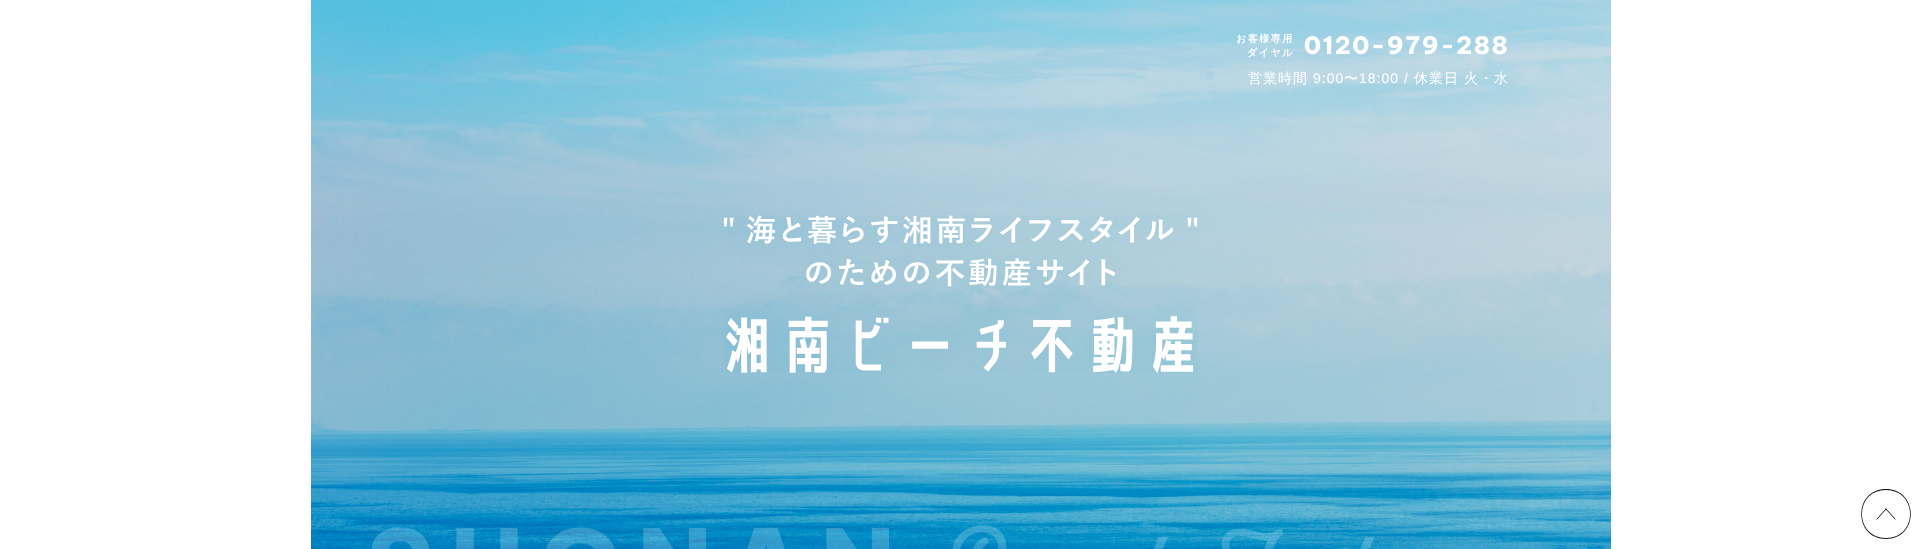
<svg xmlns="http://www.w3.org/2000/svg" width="1921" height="549">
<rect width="100%" height="100%" fill="#fff"/>
<image x="311" y="0" width="1300" height="549" href="media/1.png"/>
<text x="1236" y="42" style="font-family:WenQuanYi Zen Hei;font-size:10px;font-weight:bold;letter-spacing:1.5px;fill:#fff">お客様専用</text>
<text x="1247" y="56" style="font-family:WenQuanYi Zen Hei;font-size:10px;font-weight:bold;letter-spacing:1.5px;fill:#fff">ダイヤル</text>
<text x="1304" y="54" style="font-family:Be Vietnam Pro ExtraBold;font-size:24px;font-weight:800;letter-spacing:1.5px;fill:#fff">0120-979-288</text>
<text x="1248" y="83" style="font-family:WenQuanYi Zen Hei;font-size:14px;font-weight:500;letter-spacing:1px;fill:#fff">営業時間</text>
<text x="1313" y="83" style="font-family:Liberation Sans;font-size:14px;letter-spacing:1px;fill:#fff">9:00</text>
<text x="1344" y="83" style="font-family:WenQuanYi Zen Hei;font-size:14px;font-weight:500;letter-spacing:1px;fill:#fff">〜</text>
<text x="1359" y="83" style="font-family:Liberation Sans;font-size:14px;letter-spacing:1px;fill:#fff">18:00 /</text>
<text x="1414" y="83" style="font-family:WenQuanYi Zen Hei;font-size:14px;font-weight:500;letter-spacing:1px;fill:#fff">休業日</text>
<text x="1464" y="83" style="font-family:WenQuanYi Zen Hei;font-size:14px;font-weight:500;letter-spacing:1px;fill:#fff">火・水</text>
<image x="724" y="215" width="474" height="158" href="media/2.png"/>
<path d="M1886 509l-9 10m9-10l9 10" fill="none" stroke="#1a1a1a" stroke-linecap="square"/>
<path d="M1886 490c32 0 32 48 0 48c-32 0-32-48 0-48m0-1c-33 0-33 50 0 50c33 0 33-50 0-50z" fill="#1a1a1a"/>
</svg>
